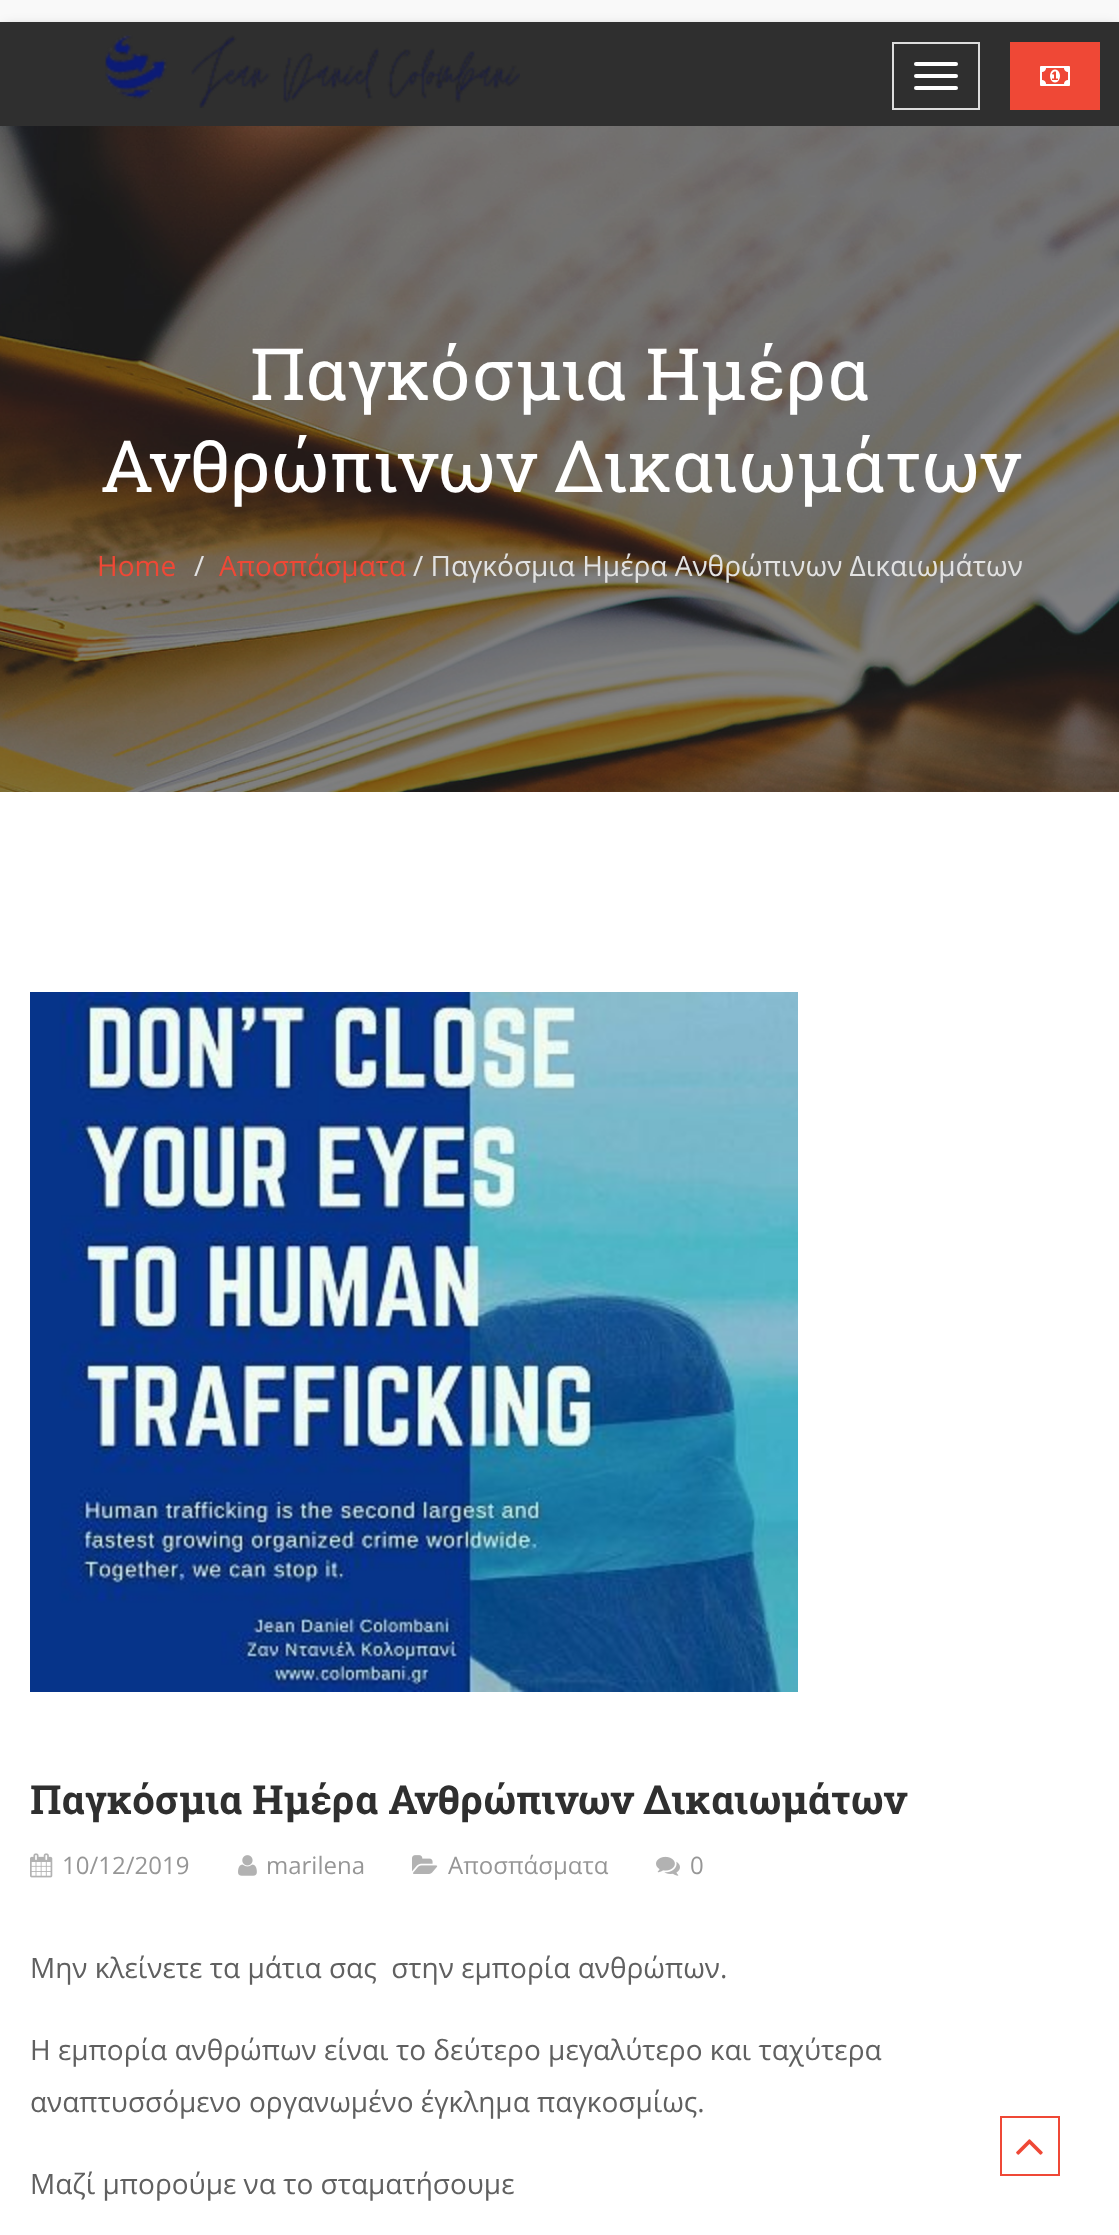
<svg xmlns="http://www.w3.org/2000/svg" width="1119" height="2235">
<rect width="100%" height="100%" fill="#fff"/>
<rect width="1119" height="20" fill="#f9f9f9"/>
<rect y="20" width="1119" height="2" fill="#f7f7f7"/>
<rect x="4" y="28" width="1112" height="96" fill="#00000040" filter="blur(7px)"/>
<rect y="22" width="1119" height="104" fill="#2f2f2f"/>
<image x="105" y="35" width="415" height="73" href="media/1.png"/>
<rect x="893" y="43" width="86" height="66" fill="none" stroke="#ddd" stroke-width="2"/>
<rect x="914" y="62" width="44" height="4" rx="2" fill="#fff"/>
<rect x="914" y="74" width="44" height="4" rx="2" fill="#fff"/>
<rect x="914" y="86" width="44" height="4" rx="2" fill="#fff"/>
<rect x="1010" y="42" width="90" height="68" fill="#ef4836"/>
<image x="1040" y="66" width="30" height="20" href="media/2.png"/>
<image x="0" y="126" width="1119" height="666" href="media/3.png"/>
<text x="250" y="400" style="font-family:Roboto Slab;font-size:72px;fill:#fff">Παγκόσμια Ημέρα</text>
<text x="100" y="492" style="font-family:Roboto Slab;font-size:72px;fill:#fff">Ανθρώπινων Δικαιωμάτων</text>
<text x="97" y="576" style="font-family:Open Sans;font-size:28px;fill:#ef4836">Home</text>
<text x="194" y="576" style="font-family:Open Sans;font-size:28px;fill:#e2e2e2">/</text>
<text x="219" y="576" style="font-family:Open Sans;font-size:28px;fill:#ef4836">Αποσπάσματα</text>
<text x="413" y="576" style="font-family:Open Sans;font-size:28px;fill:#e2e2e2">/ Παγκόσμια Ημέρα Ανθρώπινων Δικαιωμάτων</text>
<image x="30" y="992" width="768" height="700" href="media/4.png"/>
<text x="30" y="1814" style="font-family:Roboto Slab;font-size:40px;font-weight:bold;fill:#2f2f2f">Παγκόσμια Ημέρα Ανθρώπινων Δικαιωμάτων</text>
<image x="30" y="1853" width="23" height="25" href="media/5.png"/>
<text x="62" y="1874" style="font-family:Open Sans;font-size:24px;fill:#969696">10/12/2019</text>
<image x="238" y="1855" width="19" height="21" href="media/6.png"/>
<text x="266" y="1874" style="font-family:Open Sans;font-size:24px;fill:#969696">marilena</text>
<image x="412" y="1855" width="26" height="19" href="media/7.png"/>
<text x="448" y="1874" style="font-family:Open Sans;font-size:24px;fill:#969696">Αποσπάσματα</text>
<image x="656" y="1856" width="24" height="20" href="media/8.png"/>
<text x="690" y="1874" style="font-family:Open Sans;font-size:24px;fill:#969696">0</text>
<text x="30" y="1978" style="font-family:Open Sans;font-size:28px;fill:#606060" xml:space="preserve">Μην κλείνετε τα μάτια σας  στην εμπορία ανθρώπων.</text>
<text x="30" y="2060" style="font-family:Open Sans;font-size:28px;fill:#606060">Η εμπορία ανθρώπων είναι το δεύτερο μεγαλύτερο και ταχύτερα</text>
<text x="30" y="2112" style="font-family:Open Sans;font-size:28px;fill:#606060">αναπτυσσόμενο οργανωμένο έγκλημα παγκοσμίως.</text>
<text x="30" y="2194" style="font-family:Open Sans;font-size:28px;fill:#606060">Μαζί μπορούμε να το σταματήσουμε</text>
<rect x="1001" y="2117" width="58" height="58" fill="none" stroke="#ef4836" stroke-width="2"/>
<image x="1016" y="2139" width="27" height="16" href="media/9.png"/>
</svg>
